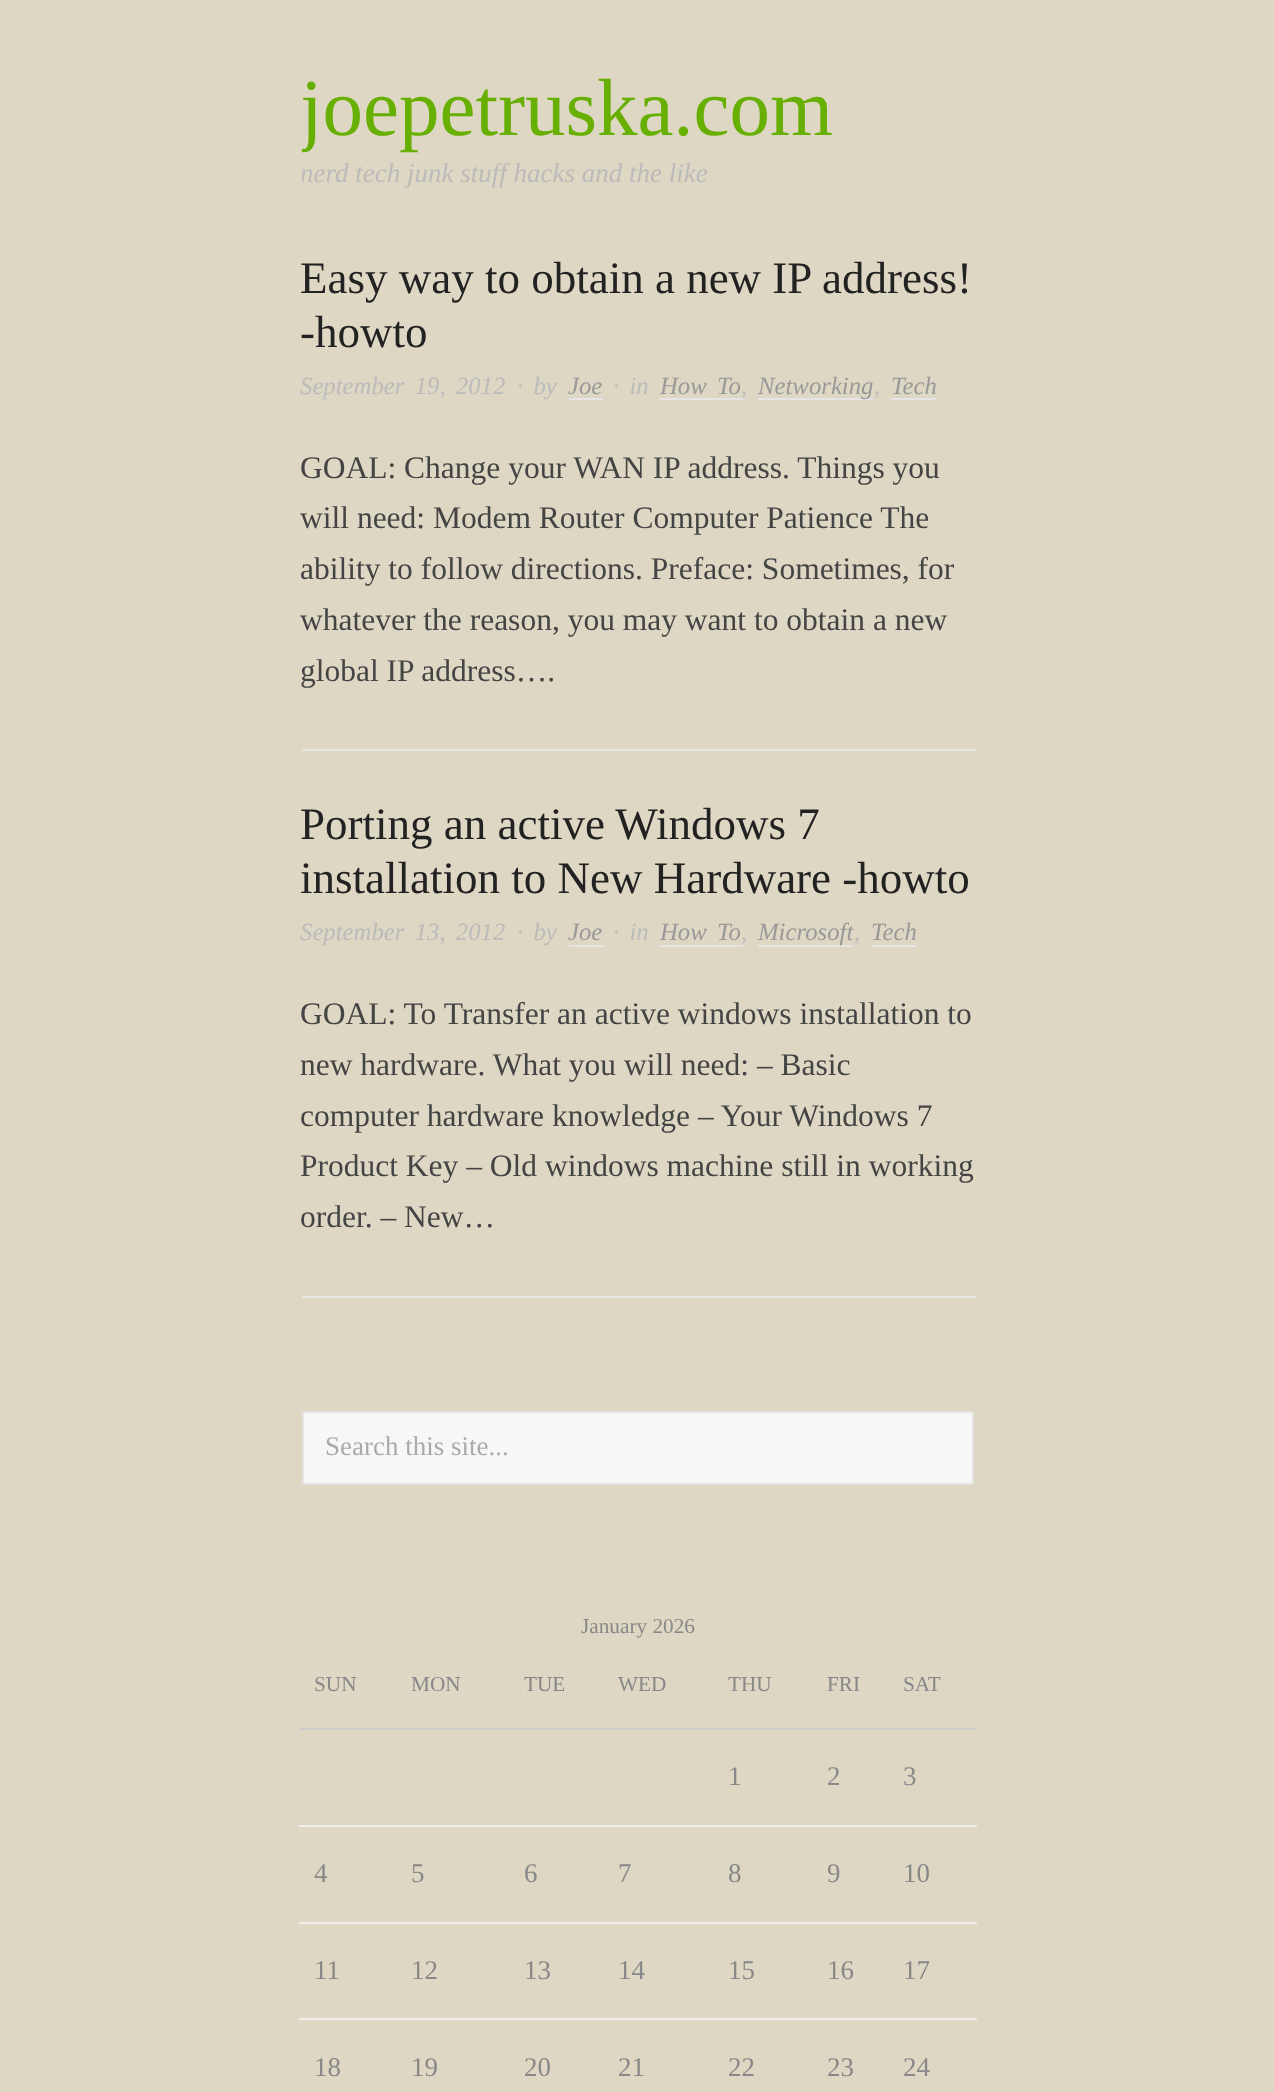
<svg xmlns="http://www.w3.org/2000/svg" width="1274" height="2092">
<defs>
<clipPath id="clip1"><rect x="302" y="68" width="675" height="182"/></clipPath>
</defs>
<rect width="100%" height="100%" fill="#ddd7c3"/>
<g clip-path="url(#clip1)">
<text x="300" y="135" style="font-family:Liberation Serif;font-size:81px;fill:#67af01">joepetruska.com</text>
<text x="300" y="182" style="font-family:Liberation Serif;font-size:27px;font-style:italic;fill:#bbb">nerd tech junk stuff hacks and the like</text>
</g>
<rect x="302" y="749" width="675" height="2" fill="#e5e5e5"/>
<text x="300" y="293" style="font-family:Liberation Serif;font-size:45px;fill:#222">Easy way to obtain a new IP address!</text>
<text x="300" y="347" style="font-family:Liberation Serif;font-size:45px;fill:#222">-howto</text>
<text x="300" y="394" word-spacing="4" style="font-family:Liberation Serif;font-size:24.75px;font-style:italic;fill:#bbb">September 19, 2012</text>
<text x="517" y="394" word-spacing="4" style="font-family:Liberation Serif;font-size:24.75px;font-style:italic;fill:#bbb">· by</text>
<text x="568" y="394" style="font-family:Liberation Serif;font-size:24.75px;font-style:italic;fill:#999">Joe</text>
<rect x="569" y="398" width="34" height="2" fill="#e5e5e5"/>
<text x="613" y="394" word-spacing="4" style="font-family:Liberation Serif;font-size:24.75px;font-style:italic;fill:#bbb">· in</text>
<text x="660" y="394" word-spacing="4" style="font-family:Liberation Serif;font-size:24.75px;font-style:italic;fill:#999">How To</text>
<text x="741" y="394" style="font-family:Liberation Serif;font-size:24.75px;font-style:italic;fill:#bbb">,</text>
<rect x="659" y="398" width="84" height="2" fill="#e5e5e5"/>
<rect x="758" y="398" width="115" height="2" fill="#e5e5e5"/>
<text x="758" y="394" style="font-family:Liberation Serif;font-size:24.75px;font-style:italic;fill:#999">Networking</text>
<text x="874" y="394" style="font-family:Liberation Serif;font-size:24.75px;font-style:italic;fill:#bbb">,</text>
<rect x="891" y="398" width="45" height="2" fill="#e5e5e5"/>
<text x="891" y="394" style="font-family:Liberation Serif;font-size:24.75px;font-style:italic;fill:#999">Tech</text>
<text x="300" y="478" style="font-family:Liberation Serif;font-size:31.5px;fill:#444">GOAL: Change your WAN IP address. Things you</text>
<text x="300" y="528" style="font-family:Liberation Serif;font-size:31.5px;fill:#444">will need: Modem Router Computer Patience The</text>
<text x="300" y="579" style="font-family:Liberation Serif;font-size:31.5px;fill:#444">ability to follow directions. Preface: Sometimes, for</text>
<text x="300" y="630" style="font-family:Liberation Serif;font-size:31.5px;fill:#444">whatever the reason, you may want to obtain a new</text>
<text x="300" y="681" style="font-family:Liberation Serif;font-size:31.5px;fill:#444">global IP address….</text>
<rect x="302" y="1296" width="675" height="2" fill="#e5e5e5"/>
<text x="300" y="839" style="font-family:Liberation Serif;font-size:45px;fill:#222">Porting an active Windows 7</text>
<text x="300" y="893" style="font-family:Liberation Serif;font-size:45px;fill:#222">installation to New Hardware -howto</text>
<text x="300" y="940" word-spacing="4" style="font-family:Liberation Serif;font-size:24.75px;font-style:italic;fill:#bbb">September 13, 2012</text>
<text x="517" y="940" word-spacing="4" style="font-family:Liberation Serif;font-size:24.75px;font-style:italic;fill:#bbb">· by</text>
<text x="568" y="940" style="font-family:Liberation Serif;font-size:24.75px;font-style:italic;fill:#999">Joe</text>
<rect x="569" y="945" width="34" height="2" fill="#e5e5e5"/>
<text x="613" y="940" word-spacing="4" style="font-family:Liberation Serif;font-size:24.75px;font-style:italic;fill:#bbb">· in</text>
<text x="660" y="940" word-spacing="4" style="font-family:Liberation Serif;font-size:24.75px;font-style:italic;fill:#999">How To</text>
<text x="741" y="940" style="font-family:Liberation Serif;font-size:24.75px;font-style:italic;fill:#bbb">,</text>
<rect x="659" y="945" width="84" height="2" fill="#e5e5e5"/>
<rect x="758" y="945" width="95" height="2" fill="#e5e5e5"/>
<text x="758" y="940" style="font-family:Liberation Serif;font-size:24.75px;font-style:italic;fill:#999">Microsoft</text>
<text x="854" y="940" style="font-family:Liberation Serif;font-size:24.75px;font-style:italic;fill:#bbb">,</text>
<rect x="871" y="945" width="45" height="2" fill="#e5e5e5"/>
<text x="871" y="940" style="font-family:Liberation Serif;font-size:24.75px;font-style:italic;fill:#999">Tech</text>
<text x="300" y="1024" style="font-family:Liberation Serif;font-size:31.5px;fill:#444">GOAL: To Transfer an active windows installation to</text>
<text x="300" y="1075" style="font-family:Liberation Serif;font-size:31.5px;fill:#444">new hardware. What you will need: – Basic</text>
<text x="300" y="1126" style="font-family:Liberation Serif;font-size:31.5px;fill:#444">computer hardware knowledge – Your Windows 7</text>
<text x="300" y="1176" style="font-family:Liberation Serif;font-size:31.5px;fill:#444">Product Key – Old windows machine still in working</text>
<text x="300" y="1227" style="font-family:Liberation Serif;font-size:31.5px;fill:#444">order. – New…</text>
<rect x="303" y="1412" width="670" height="72" fill="#f7f7f7" stroke="#e3e3e3" stroke-width="2"/>
<text x="325" y="1455" style="font-family:Liberation Serif;font-size:27px;fill:#aaa">Search this site...</text>
<text x="581" y="1633" style="font-family:Liberation Serif;font-size:21.25px;fill:#888">January 2026</text>
<text x="314" y="1691" style="font-family:Liberation Serif;font-size:21.25px;fill:#888">SUN</text>
<text x="411" y="1691" style="font-family:Liberation Serif;font-size:21.25px;fill:#888">MON</text>
<text x="524" y="1691" style="font-family:Liberation Serif;font-size:21.25px;fill:#888">TUE</text>
<text x="618" y="1691" style="font-family:Liberation Serif;font-size:21.25px;fill:#888">WED</text>
<text x="728" y="1691" style="font-family:Liberation Serif;font-size:21.25px;fill:#888">THU</text>
<text x="827" y="1691" style="font-family:Liberation Serif;font-size:21.25px;fill:#888">FRI</text>
<rect x="299" y="1728" width="678" height="2" fill="#ccc"/>
<text x="903" y="1691" style="font-family:Liberation Serif;font-size:21.25px;fill:#888">SAT</text>
<text x="728" y="1785" style="font-family:Liberation Serif;font-size:27px;fill:#888">1</text>
<text x="827" y="1785" style="font-family:Liberation Serif;font-size:27px;fill:#888">2</text>
<rect x="299" y="1825" width="678" height="2" fill="#eee"/>
<text x="903" y="1785" style="font-family:Liberation Serif;font-size:27px;fill:#888">3</text>
<text x="314" y="1882" style="font-family:Liberation Serif;font-size:27px;fill:#888">4</text>
<text x="411" y="1882" style="font-family:Liberation Serif;font-size:27px;fill:#888">5</text>
<text x="524" y="1882" style="font-family:Liberation Serif;font-size:27px;fill:#888">6</text>
<text x="618" y="1882" style="font-family:Liberation Serif;font-size:27px;fill:#888">7</text>
<text x="728" y="1882" style="font-family:Liberation Serif;font-size:27px;fill:#888">8</text>
<text x="827" y="1882" style="font-family:Liberation Serif;font-size:27px;fill:#888">9</text>
<rect x="299" y="1922" width="678" height="2" fill="#eee"/>
<text x="903" y="1882" style="font-family:Liberation Serif;font-size:27px;fill:#888">10</text>
<text x="314" y="1979" style="font-family:Liberation Serif;font-size:27px;fill:#888">11</text>
<text x="411" y="1979" style="font-family:Liberation Serif;font-size:27px;fill:#888">12</text>
<text x="524" y="1979" style="font-family:Liberation Serif;font-size:27px;fill:#888">13</text>
<text x="618" y="1979" style="font-family:Liberation Serif;font-size:27px;fill:#888">14</text>
<text x="728" y="1979" style="font-family:Liberation Serif;font-size:27px;fill:#888">15</text>
<text x="827" y="1979" style="font-family:Liberation Serif;font-size:27px;fill:#888">16</text>
<rect x="299" y="2018" width="678" height="2" fill="#eee"/>
<text x="903" y="1979" style="font-family:Liberation Serif;font-size:27px;fill:#888">17</text>
<text x="314" y="2076" style="font-family:Liberation Serif;font-size:27px;fill:#888">18</text>
<text x="411" y="2076" style="font-family:Liberation Serif;font-size:27px;fill:#888">19</text>
<text x="524" y="2076" style="font-family:Liberation Serif;font-size:27px;fill:#888">20</text>
<text x="618" y="2076" style="font-family:Liberation Serif;font-size:27px;fill:#888">21</text>
<text x="728" y="2076" style="font-family:Liberation Serif;font-size:27px;fill:#888">22</text>
<text x="827" y="2076" style="font-family:Liberation Serif;font-size:27px;fill:#888">23</text>
<text x="903" y="2076" style="font-family:Liberation Serif;font-size:27px;fill:#888">24</text>
</svg>
